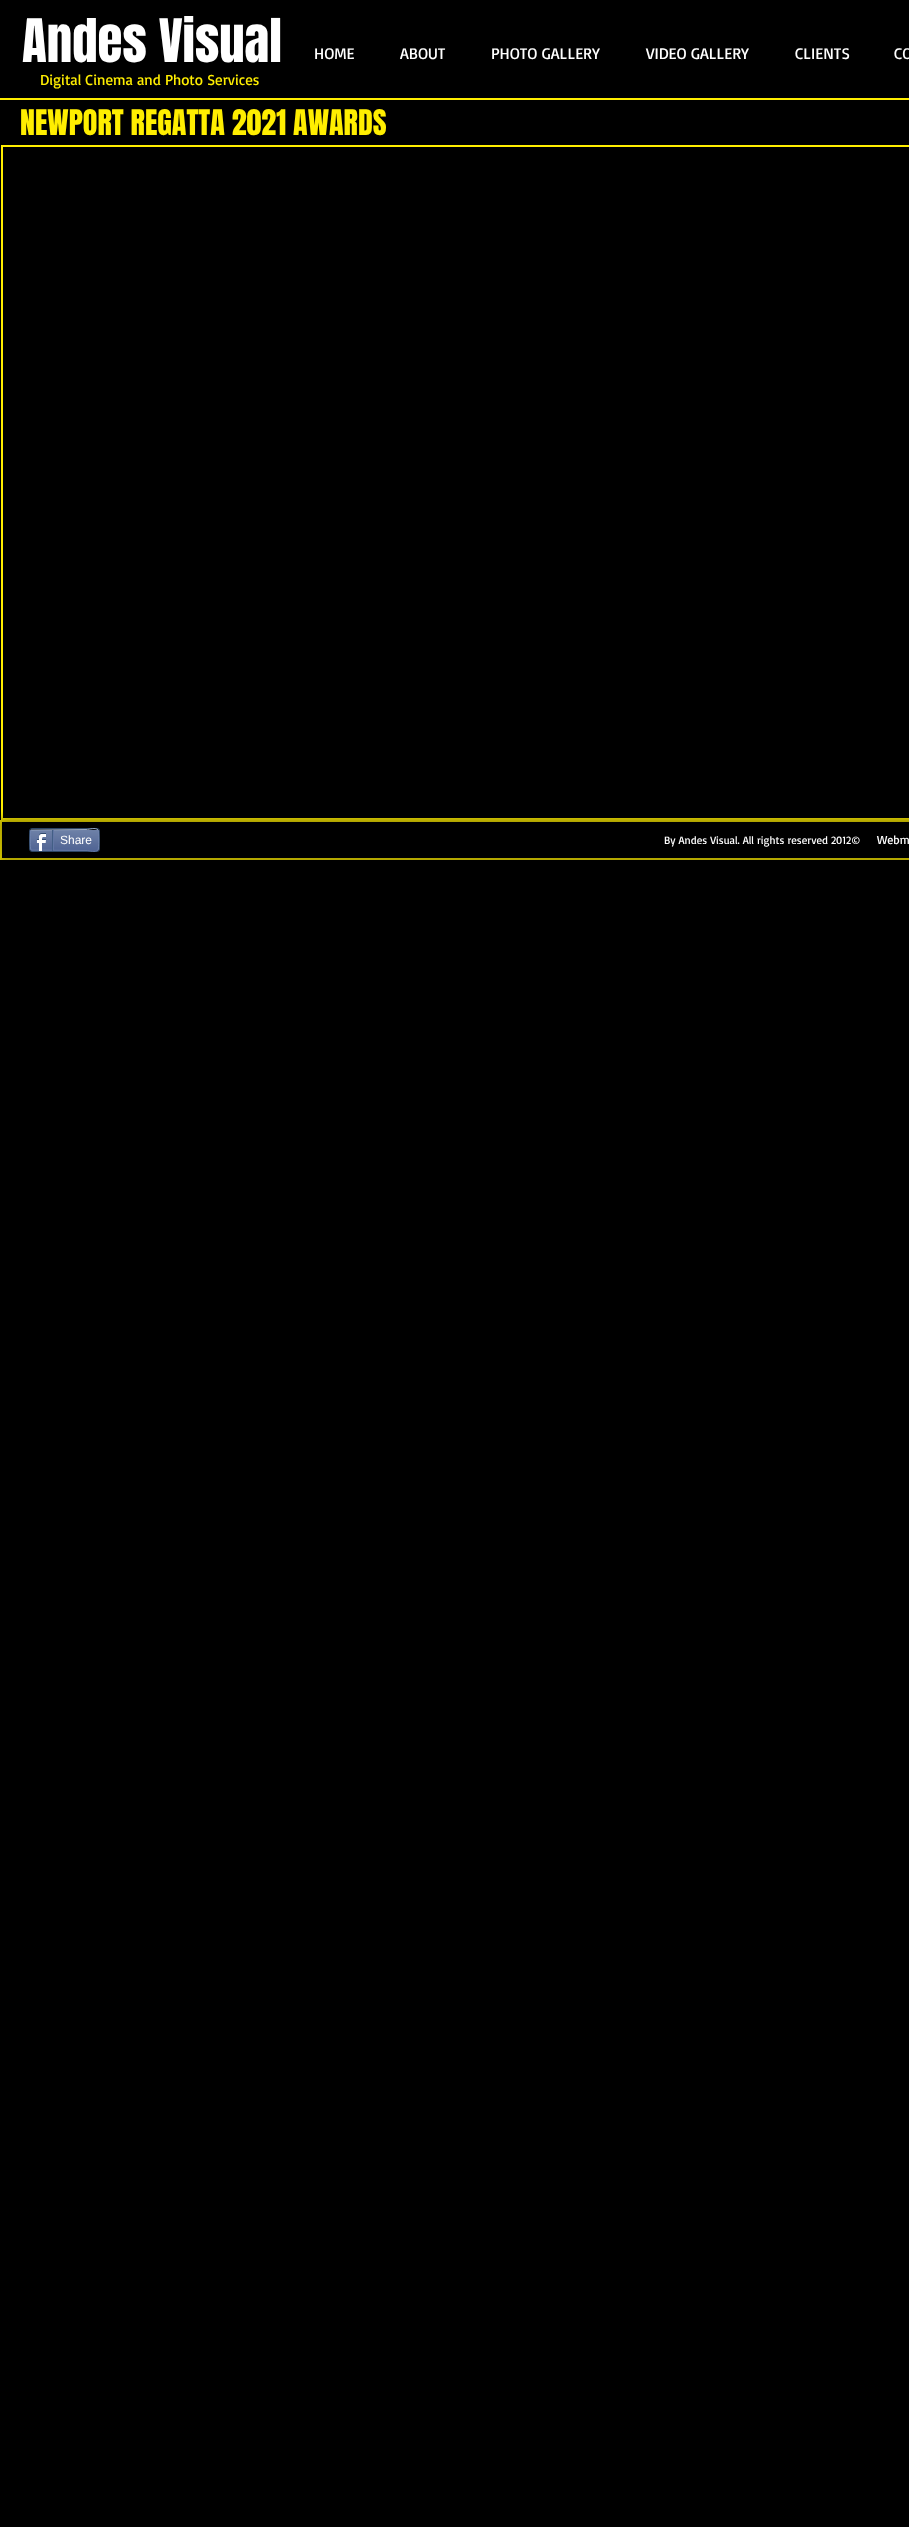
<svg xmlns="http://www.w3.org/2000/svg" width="909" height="2527">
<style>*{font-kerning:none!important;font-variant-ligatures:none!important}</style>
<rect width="100%" height="100%" fill="#000"/>
<text x="22" y="62" style="font-family:Anton;font-size:51px;fill:#fff">Andes Visual</text>
<text x="314" y="59" style="font-family:Basic;font-size:16px;fill:#fff">HOME</text>
<text x="400" y="59" style="font-family:Basic;font-size:16px;fill:#fff">ABOUT</text>
<text x="491" y="59" style="font-family:Basic;font-size:16px;fill:#fff">PHOTO GALLERY</text>
<text x="646" y="59" style="font-family:Basic;font-size:16px;fill:#fff">VIDEO GALLERY</text>
<text x="795" y="59" style="font-family:Basic;font-size:16px;fill:#fff">CLIENTS</text>
<text x="894" y="59" style="font-family:Basic;font-size:16px;fill:#fff">CO</text>
<text x="40" y="85" style="font-family:Basic;font-size:15px;fill:#fe0">Digital Cinema and Photo Services</text>
<rect y="98" width="909" height="2" fill="#fe0"/>
<text x="20" y="135" style="font-family:Anton;font-size:30px;fill:#fe0">NEWPORT REGATTA 2021 AWARDS</text>
<rect x="2" y="146" width="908" height="673" fill="none" stroke="#fe0" stroke-width="2"/>
<rect y="820" width="909" height="40" fill="#fe0"/>
<image x="0" y="810" width="35" height="50" href="media/1.png"/>
<image x="35" y="818" width="874" height="42" href="media/2.png"/>
<rect x="2" y="822" width="907" height="36" fill="#000"/>
<rect x="29.5" y="828.5" width="70" height="23" rx="2.5" fill="none" stroke="#2d4565"/>
<image x="30" y="830" width="69" height="21" href="media/3.png"/>
<path d="M31 830l55-.5c4 0 9-2.5 12 .5" fill="none" stroke="#9aabc6"/>
<path d="M98 830c1 .5 1 19.5 0 20" fill="none" stroke="#6f83ad"/>
<path d="M98 850c-3 3-8 .5-12 .5l-55-.5" fill="none" stroke="#6176a3"/>
<path d="M31 850c-1-.5-1-19.5 0-20" fill="none" stroke="#6f83ad"/>
<image x="36" y="833" width="10" height="18" href="media/4.png"/>
<rect x="52" y="830" width="1" height="21" fill="#425e85"/>
<text x="60" y="844" style="font-family:Liberation Sans;font-size:12px;fill:#fff">Share</text>
<rect x="53" y="830" width="1" height="20" fill="#6176a3"/>
<text x="664" y="844" style="font-family:Basic;font-size:11px;fill:#fff">By Andes Visual. All rights reserved 2012©</text>
<text x="877" y="844" style="font-family:Basic;font-size:12px;fill:#fff">Webm</text>
</svg>
